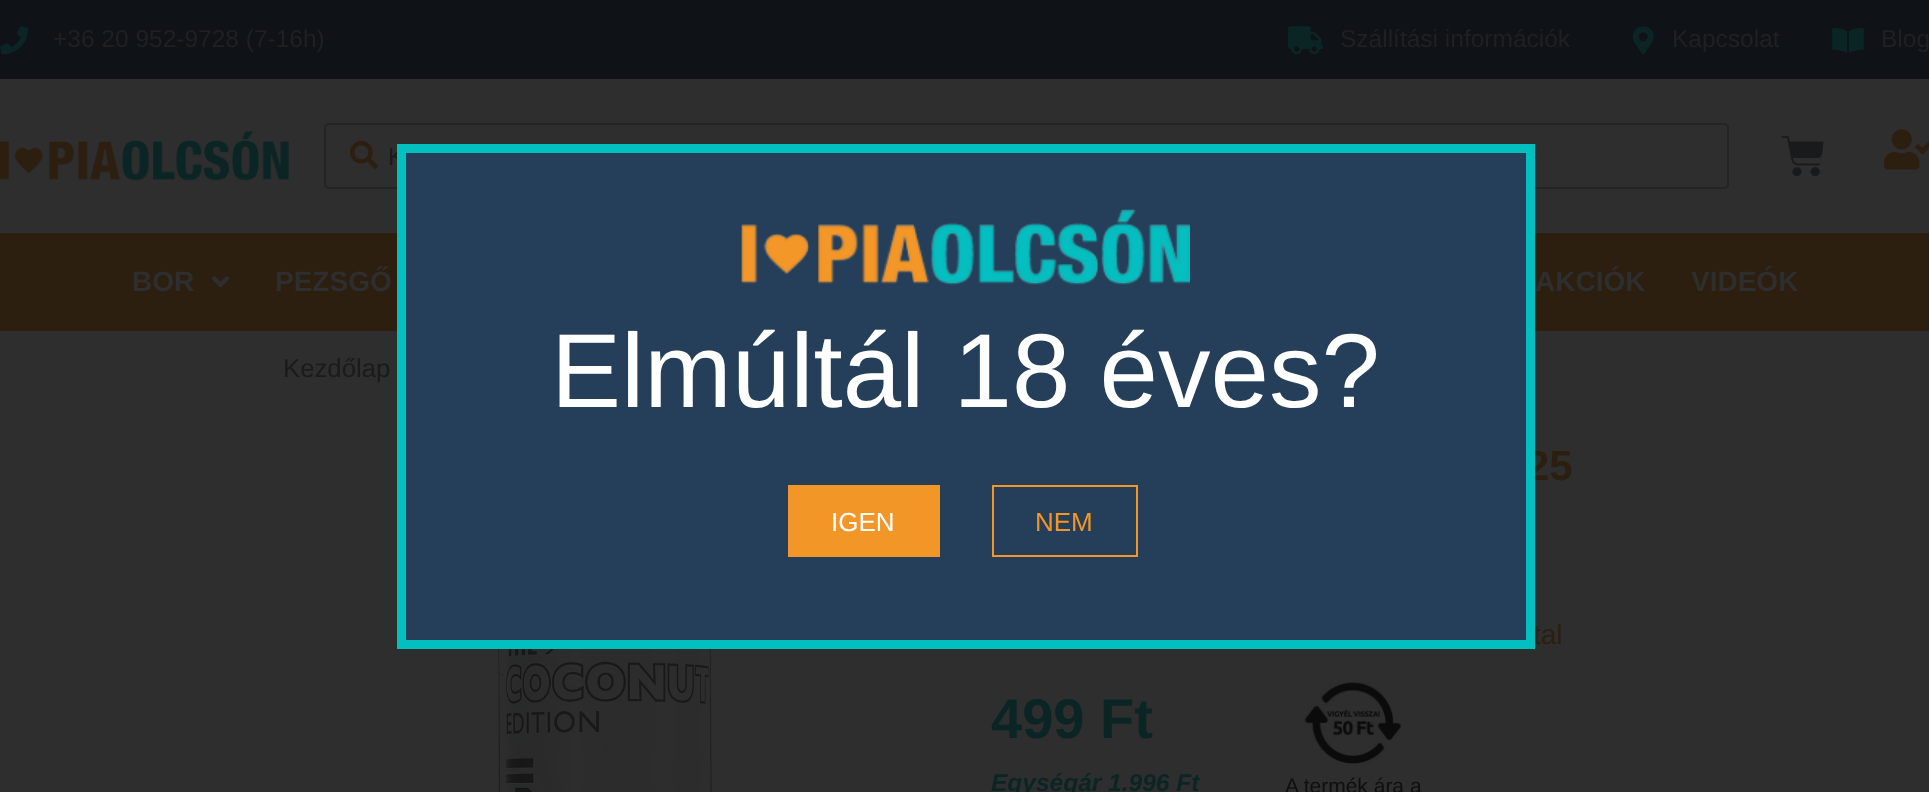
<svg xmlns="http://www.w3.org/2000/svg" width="1929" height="792">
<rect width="100%" height="100%" fill="#2e2e2e"/>
<rect width="1929" height="79" fill="#0f1317"/>
<image x="0" y="26" width="28" height="29" href="media/1.png"/>
<text x="53" y="47" style="font-family:Liberation Sans;font-size:24.5px;fill:#1f2022">+36 20 952-9728 (7-16h)</text>
<image x="1288" y="26" width="35" height="29" href="media/2.png"/>
<text x="1340" y="47" style="font-family:Liberation Sans;font-size:24.5px;fill:#1f2022">Szállítási információk</text>
<image x="1632" y="26" width="22" height="29" href="media/3.png"/>
<text x="1672" y="47" style="font-family:Liberation Sans;font-size:24.5px;fill:#1f2022">Kapcsolat</text>
<image x="1832" y="28" width="32" height="25" href="media/4.png"/>
<text x="1881" y="47" style="font-family:Liberation Sans;font-size:24.5px;fill:#1f2022">Blog</text>
<image x="0" y="131" width="289" height="50" href="media/5.png"/>
<rect x="325" y="124" width="1403" height="64" rx="4" fill="none" stroke="#242424" stroke-width="2"/>
<image x="350" y="140" width="28" height="29" href="media/6.png"/>
<text x="388" y="165" style="font-family:Liberation Sans;font-size:24.5px;fill:#1b1b1b">K</text>
<image x="1781" y="136" width="43" height="41" href="media/7.png"/>
<image x="1884" y="129" width="45" height="41" href="media/8.png"/>
<rect y="233" width="1929" height="98" fill="#2c1f10"/>
<text x="132" y="291" style="font-family:Liberation Sans;font-size:28px;font-weight:bold;fill:#2e2e2e">BOR</text>
<image x="211" y="276" width="19" height="12" href="media/9.png"/>
<text x="275" y="291" style="font-family:Liberation Sans;font-size:28px;font-weight:bold;fill:#2e2e2e">PEZSGŐ</text>
<text x="1535" y="291" style="font-family:Liberation Sans;font-size:28px;font-weight:bold;fill:#2e2e2e">AKCIÓK</text>
<text x="1691" y="291" style="font-family:Liberation Sans;font-size:28px;font-weight:bold;fill:#2e2e2e">VIDEÓK</text>
<text x="1526" y="480" style="font-family:Liberation Sans;font-size:42px;font-weight:bold;fill:#2c1f10">25</text>
<text x="1533" y="644" style="font-family:Liberation Sans;font-size:28px;fill:#2c1f10">tal</text>
<rect x="401.5" y="148.5" width="1129" height="496" fill="#253e59" stroke="#04bfbf" stroke-width="9"/>
<image x="741" y="209" width="449" height="76" href="media/10.png"/>
<text x="551" y="407" style="font-family:Liberation Sans;font-size:105px;fill:#fff">Elmúltál 18 éves?</text>
<rect x="788" y="485" width="152" height="72" fill="#f29727"/>
<text x="831" y="531" style="font-family:Liberation Sans;font-size:26px;fill:#fff">IGEN</text>
<rect x="993" y="486" width="144" height="70" fill="none" stroke="#f29727" stroke-width="2"/>
<text x="1035" y="531" style="font-family:Liberation Sans;font-size:26px;fill:#f29727">NEM</text>
<text x="283" y="377" style="font-family:Liberation Sans;font-size:25.75px;fill:#1b1b1b">Kezdőlap</text>
<image x="496" y="649" width="216" height="143" href="media/11.png"/>
<text x="991" y="738" style="font-family:Liberation Sans;font-size:56px;font-weight:bold;fill:#0b2525">499 Ft</text>
<text x="991" y="791" style="font-family:Liberation Sans;font-size:24.5px;font-weight:bold;font-style:italic;fill:#0b2525">Egységár 1.996 Ft</text>
<image x="1304" y="682" width="97" height="82" href="media/12.png"/>
<text x="1285" y="793" style="font-family:Liberation Sans;font-size:21px;fill:#0f0f0f">A termék ára a</text>
</svg>
